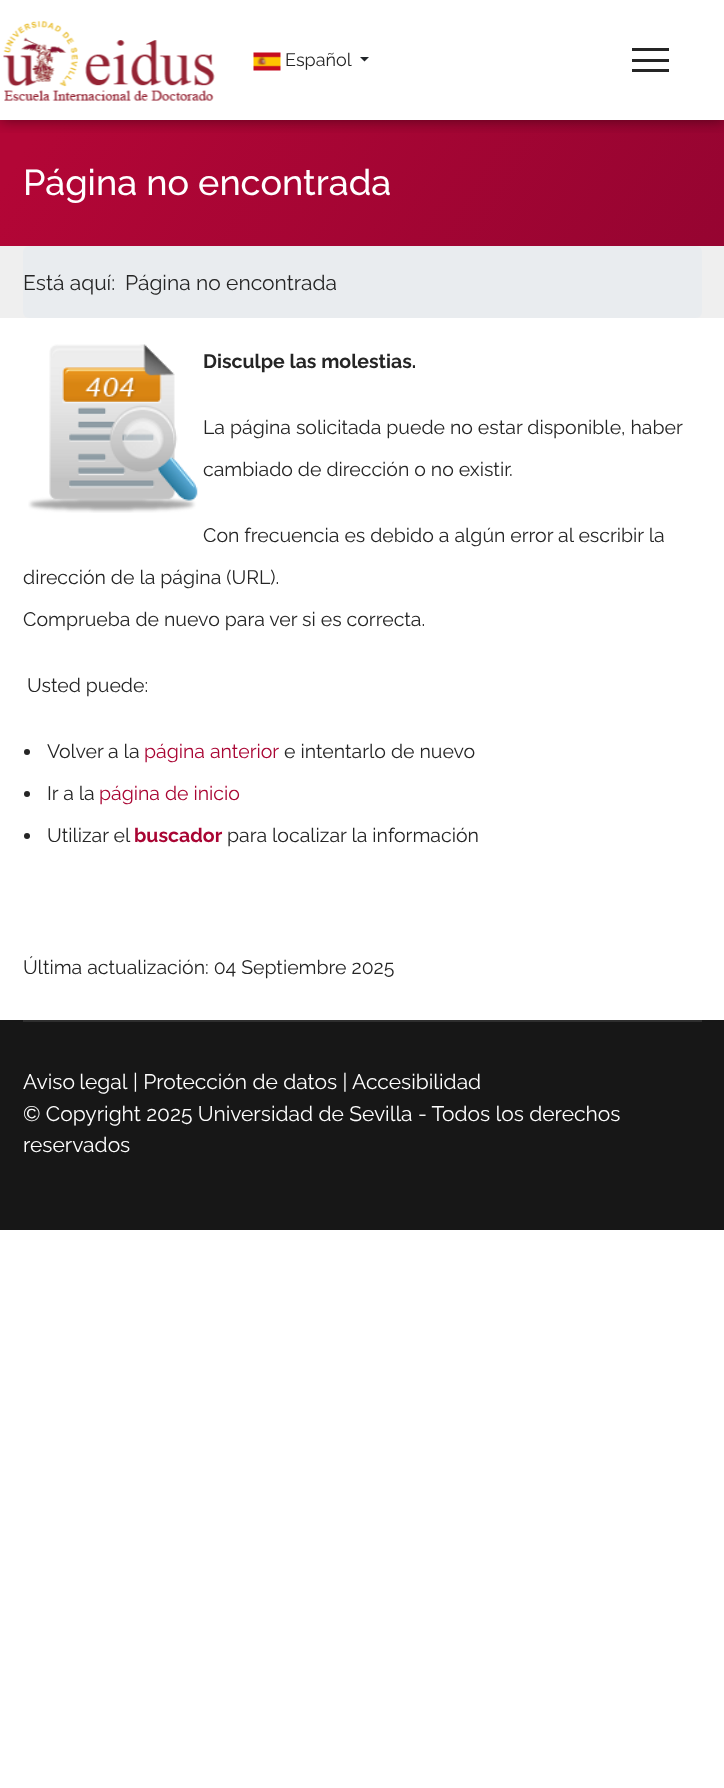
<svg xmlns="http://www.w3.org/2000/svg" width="724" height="1788">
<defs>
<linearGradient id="g1" gradientUnits="userSpaceOnUse" x1="63" y1="10" x2="661" y2="356"><stop offset="0.05" stop-color="#b30636"/><stop offset="1" stop-color="#960431"/></linearGradient>
<clipPath id="clip1"><rect x="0" y="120" width="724" height="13"/></clipPath>
</defs>
<rect width="100%" height="100%" fill="#fff"/>
<rect y="120" width="724" height="126" fill="url(#g1)"/>
<g clip-path="url(#clip1)">
<rect width="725" height="120" fill="#00000080" filter="blur(7.5px)"/>
</g>
<image x="3" y="21" width="212" height="80" href="media/1.png"/>
<image x="253" y="52" width="28" height="19" href="media/2.png"/>
<text x="285" y="66" style="font-family:Raleway;font-size:18px;fill:#252525">Español</text>
<path d="M360 57h9l-4.5 4.5z" fill="#212529"/>
<rect x="632" y="48" width="37" height="3" fill="#252525"/>
<rect x="632" y="59" width="37" height="3" fill="#252525"/>
<rect x="632" y="69" width="37" height="3" fill="#252525"/>
<text x="23" y="195" style="font-family:Raleway;font-size:36px;font-weight:500;fill:#fff">Página no encontrada</text>
<rect y="246" width="724" height="72" fill="#efefef"/>
<rect x="23" y="246" width="679" height="72" rx="6" fill="#e9ecef"/>
<text x="23" y="290" style="font-family:Raleway;font-size:21px;fill:#252525">Está aquí:</text>
<text x="125" y="290" style="font-family:Raleway;font-size:21px;fill:#252525">Página no encontrada</text>
<image x="28" y="344" width="170" height="169" href="media/3.png"/>
<text x="203" y="368" style="font-family:Raleway;font-size:19.5px;font-weight:bold;fill:#252525">Disculpe las molestias.</text>
<text x="203" y="434" style="font-family:Raleway;font-size:19.5px;fill:#252525">La página solicitada puede no estar disponible, haber</text>
<text x="203" y="476" style="font-family:Raleway;font-size:19.5px;fill:#252525">cambiado de dirección o no existir.</text>
<text x="203" y="542" style="font-family:Raleway;font-size:19.5px;fill:#252525">Con frecuencia es debido a algún error al escribir la</text>
<text x="23" y="584" style="font-family:Raleway;font-size:19.5px;fill:#252525">dirección de la página (URL).</text>
<text x="23" y="626" style="font-family:Raleway;font-size:19.5px;fill:#252525">Comprueba de nuevo para ver si es correcta.</text>
<text x="27" y="692" style="font-family:Raleway;font-size:19.5px;fill:#252525">Usted puede:</text>
<circle cx="27" cy="752" r="3" fill="#252525"/>
<text x="47" y="758" style="font-family:Raleway;font-size:19.5px;fill:#252525">Volver</text>
<text x="108" y="758" style="font-family:Raleway;font-size:19.5px;fill:#252525">a la</text>
<text x="144" y="758" style="font-family:Raleway;font-size:19.5px;fill:#a90533">página anterior</text>
<text x="284" y="758" style="font-family:Raleway;font-size:19.5px;fill:#252525">e intentarlo de nuevo</text>
<circle cx="27" cy="794" r="3" fill="#252525"/>
<text x="47" y="800" style="font-family:Raleway;font-size:19.5px;fill:#252525">Ir a la</text>
<text x="99" y="800" style="font-family:Raleway;font-size:19.5px;fill:#a90533">página de inicio</text>
<circle cx="27" cy="836" r="3" fill="#252525"/>
<text x="47" y="842" style="font-family:Raleway;font-size:19.5px;fill:#252525">Utilizar el</text>
<text x="134" y="842" style="font-family:Raleway;font-size:19.5px;font-weight:bold;fill:#a90533">buscador</text>
<text x="227" y="842" style="font-family:Raleway;font-size:19.5px;fill:#252525">para localizar la información</text>
<text x="23" y="974" style="font-family:Raleway;font-size:19.5px;fill:#252525">Última actualización: 04 Septiembre 2025</text>
<rect y="1020" width="724" height="210" fill="#171717"/>
<rect x="23" y="1020" width="679" height="2" fill="#2e2e2e"/>
<text x="23" y="1089" word-spacing="-1" style="font-family:Raleway;font-size:21px;fill:#fff">Aviso legal</text>
<text x="133" y="1089" style="font-family:Raleway;font-size:21px;fill:#fff">| Protección de datos |</text>
<text x="352" y="1089" style="font-family:Raleway;font-size:21px;fill:#fff">Accesibilidad</text>
<text x="23" y="1121" style="font-family:Raleway;font-size:21px;fill:#fff">© Copyright 2025 Universidad de Sevilla - Todos los derechos</text>
<text x="23" y="1152" style="font-family:Raleway;font-size:21px;fill:#fff">reservados</text>
</svg>
